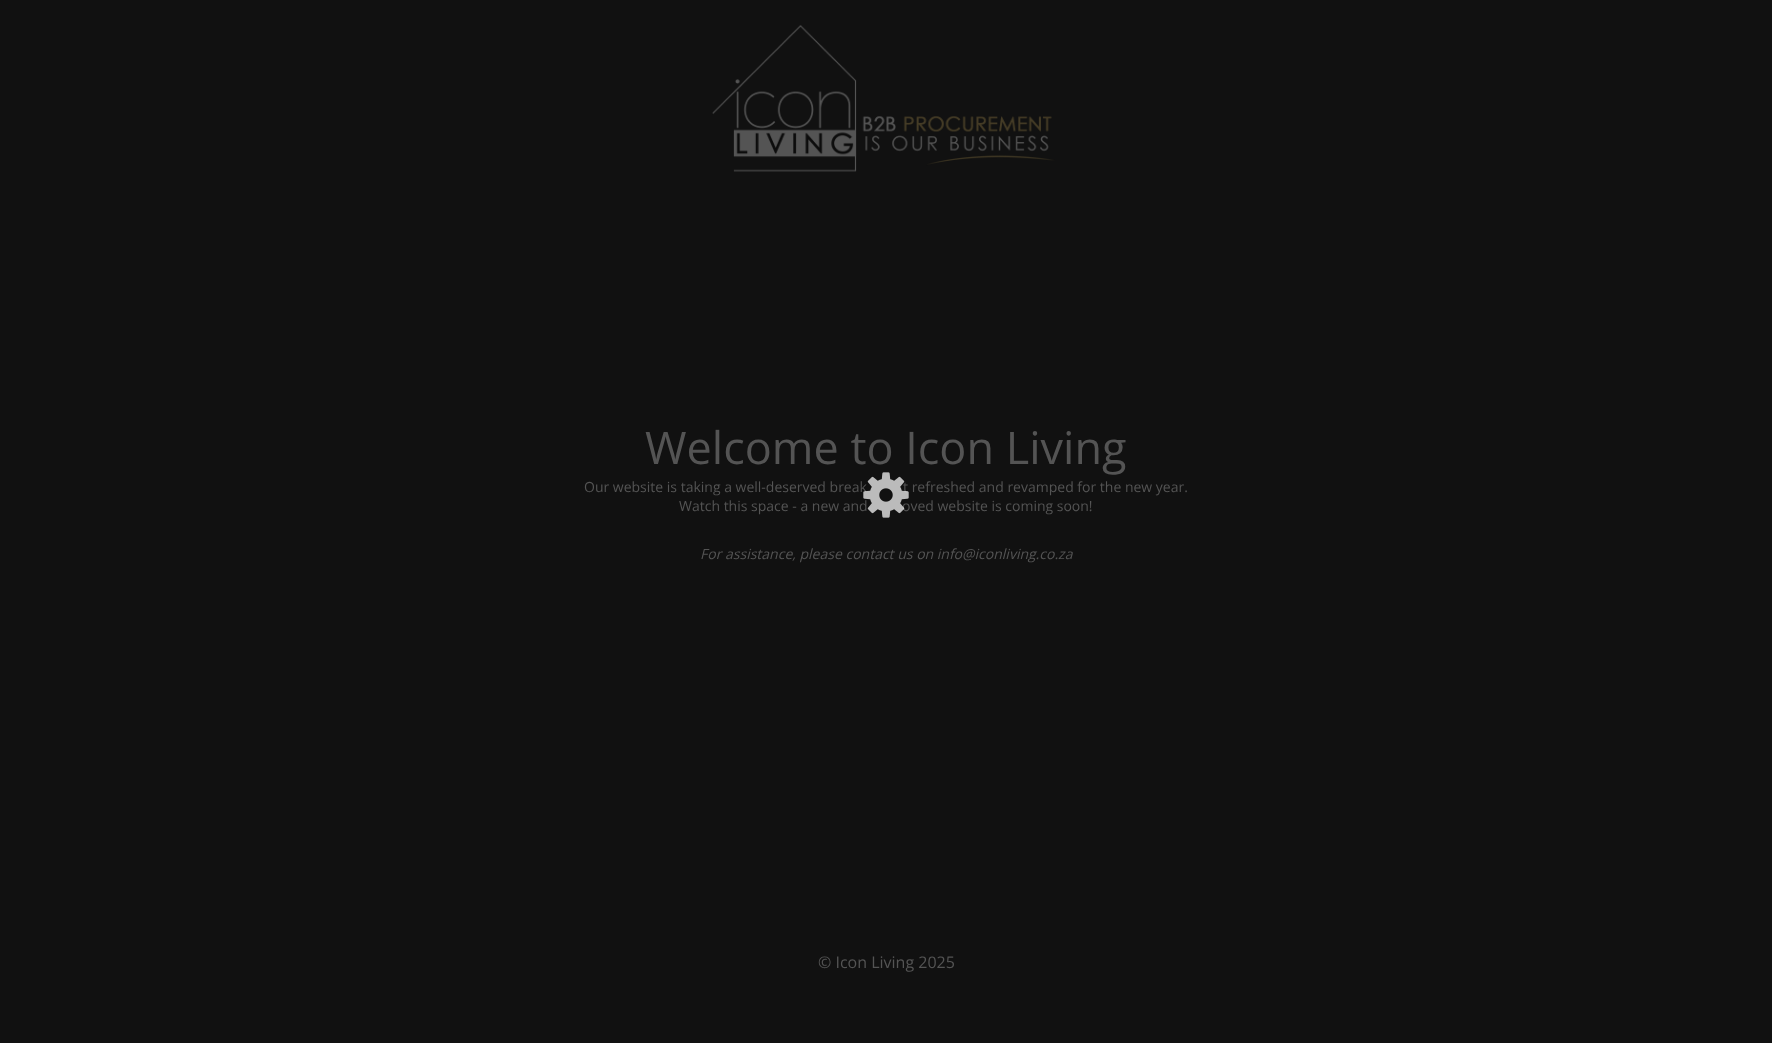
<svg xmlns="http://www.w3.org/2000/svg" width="1772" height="1043">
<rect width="100%" height="100%" fill="#111"/>
<image x="712" y="24" width="343" height="148" href="media/1.png"/>
<text x="645" y="464" style="font-family:Open Sans;font-size:45px;fill:#545454">Welcome to Icon Living</text>
<text x="584" y="492" style="font-family:Open Sans;font-size:14px;fill:#545454">Our website is taking a well-deserved break</text>
<text x="903" y="492" style="font-family:Open Sans;font-size:14px;fill:#545454">t refreshed and revamped for the new year.</text>
<text x="679" y="511" style="font-family:Open Sans;font-size:14px;fill:#545454">Watch this space - a new and</text>
<text x="902" y="511" style="font-family:Open Sans;font-size:14px;fill:#545454">oved website is coming soon!</text>
<text x="700" y="559" style="font-family:Open Sans;font-size:14px;font-style:italic;fill:#545454">For assistance, please contact us on info@iconliving.co.za</text>
<image x="863" y="472" width="46" height="46" href="media/2.png"/>
<text x="818" y="968" style="font-family:Open Sans;font-size:16px;fill:#545454">© Icon Living 2025</text>
</svg>
